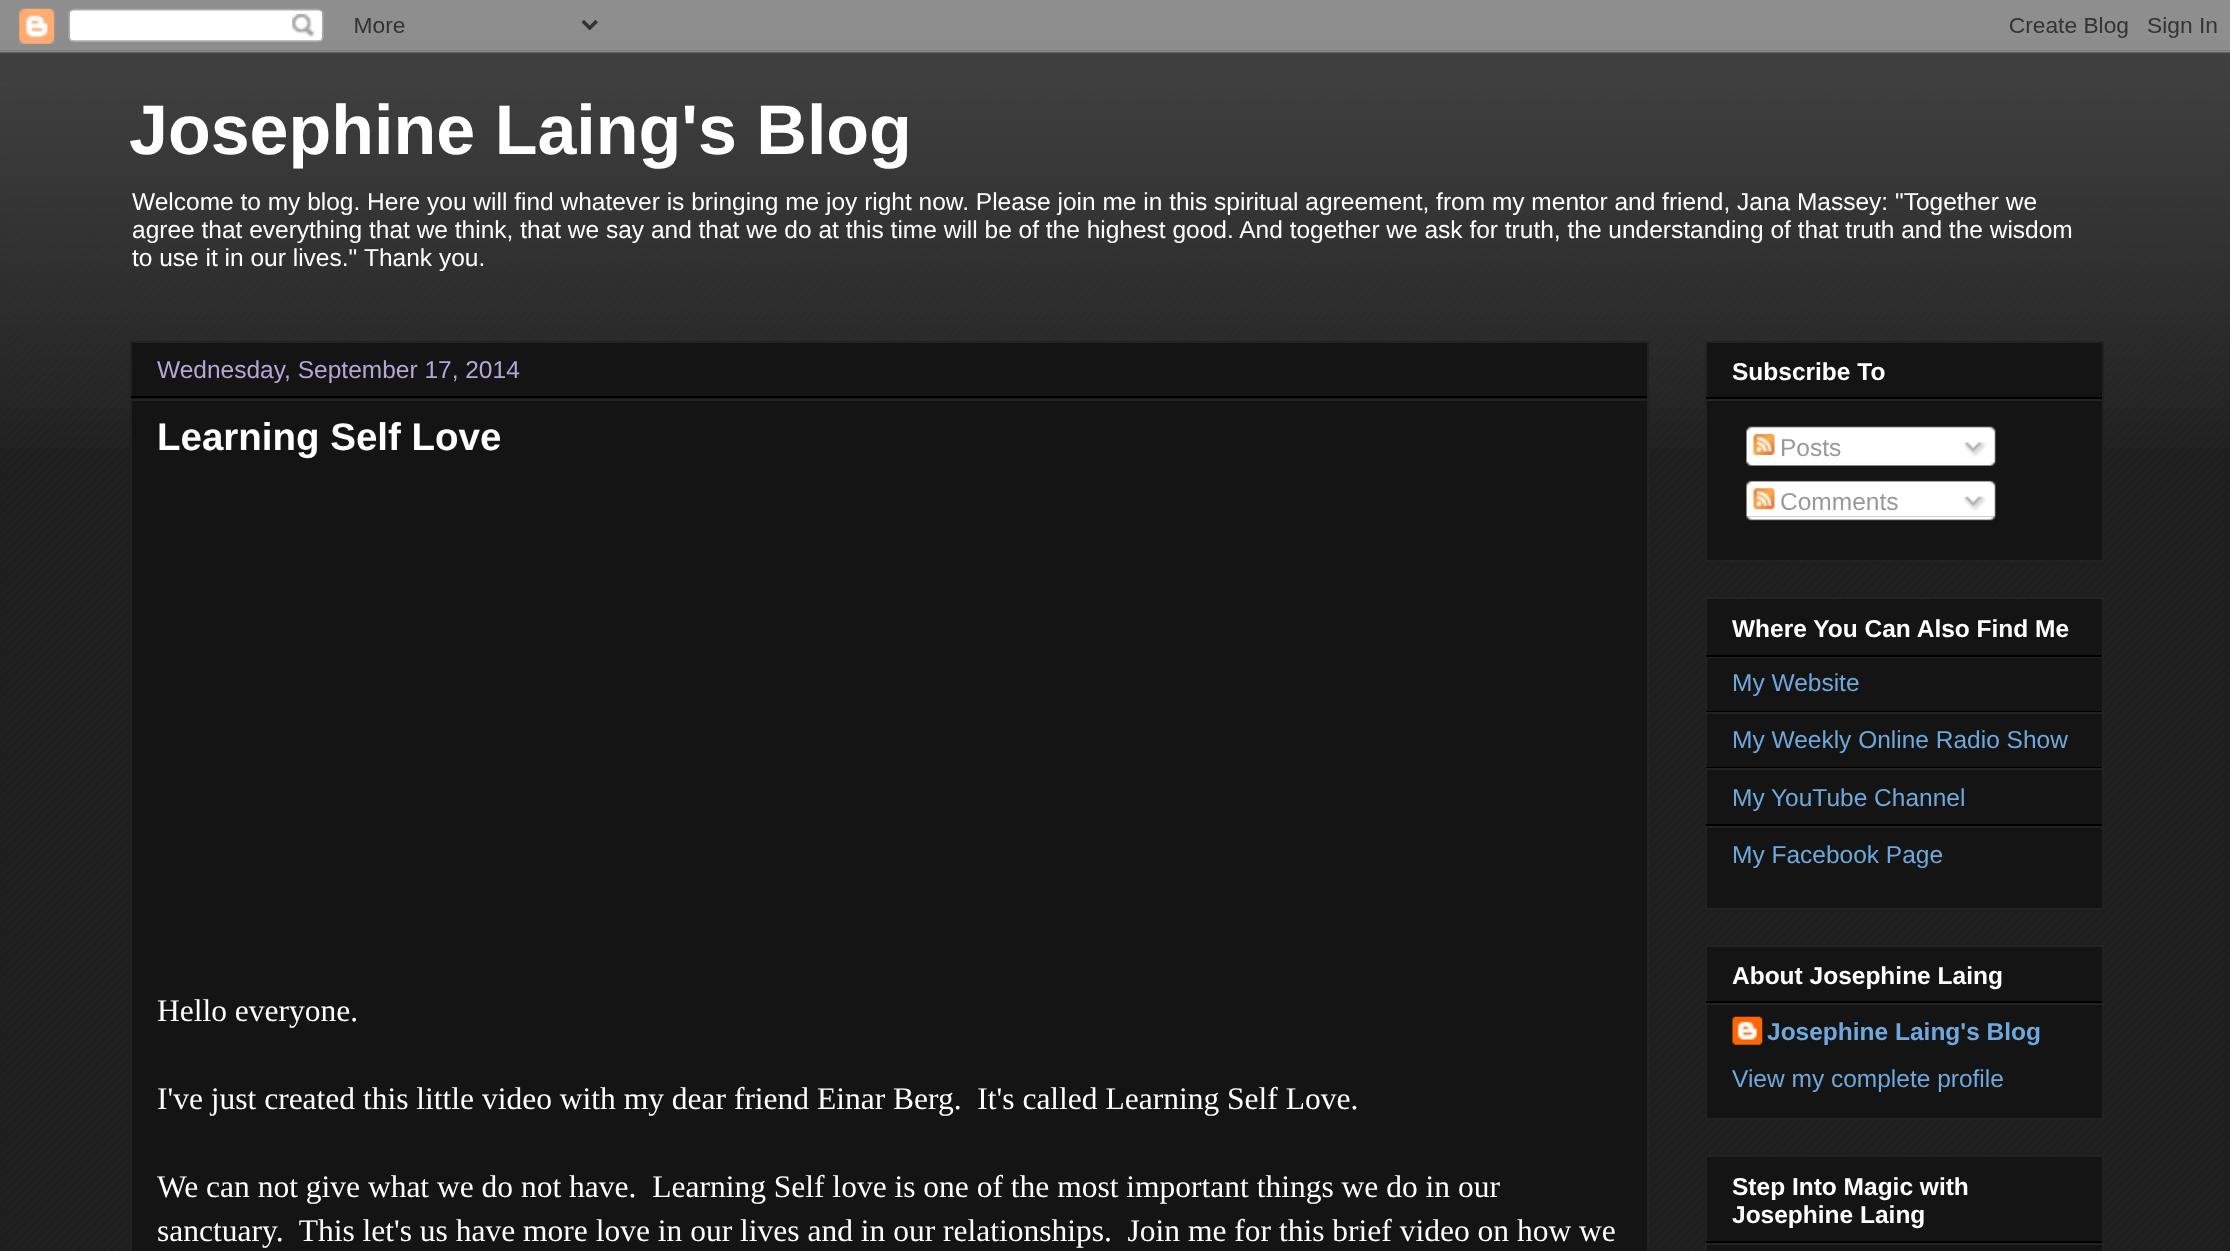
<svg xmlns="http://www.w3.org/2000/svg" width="2230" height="1251">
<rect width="100%" height="100%" fill="#1e1e1e"/>
<image x="2" y="23" width="2227" height="1228" href="media/1.png"/>
<image x="0" y="0" width="2230" height="448" href="media/2.png"/>
<image x="0" y="0" width="2230" height="53" href="media/3.png"/>
<text x="129" y="154" style="font-family:Liberation Sans;font-size:70px;font-weight:bold;fill:#fff">Josephine Laing's Blog</text>
<text x="132" y="210" style="font-family:Liberation Sans;font-size:24.5px;fill:#fff">Welcome to my blog. Here you will find whatever is bringing me joy right now. Please join me in this spiritual agreement, from my mentor and friend, Jana Massey: "Together we</text>
<text x="132" y="238" style="font-family:Liberation Sans;font-size:24.5px;fill:#fff">agree that everything that we think, that we say and that we do at this time will be of the highest good. And together we ask for truth, the understanding of that truth and the wisdom</text>
<text x="132" y="266" style="font-family:Liberation Sans;font-size:24.5px;fill:#fff">to use it in our lives."</text>
<text x="364" y="266" style="font-family:Liberation Sans;font-size:24.5px;fill:#fff">Thank you.</text>
<rect x="131" y="342" width="1517" height="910" fill="#141414" stroke="#222" stroke-width="2"/>
<rect x="131" y="396" width="1516" height="2" fill="#000"/>
<text x="157" y="378" style="font-family:Liberation Sans;font-size:24.5px;fill:#b4a7d6">Wednesday, September 17, 2014</text>
<rect x="131" y="399" width="1516" height="2" fill="#222"/>
<text x="157" y="450" style="font-family:Liberation Sans;font-size:38.5px;font-weight:bold;fill:#fff">Learning Self Love</text>
<text x="157" y="1021" style="font-family:Liberation Serif;font-size:31.5px;fill:#fff">Hello everyone.</text>
<text x="157" y="1109" style="font-family:Liberation Serif;font-size:31.5px;fill:#fff" xml:space="preserve">I've just created this little video with my dear friend Einar Berg.  It's called Learning Self Love.</text>
<text x="157" y="1197" style="font-family:Liberation Serif;font-size:31.5px;fill:#fff" xml:space="preserve">We can not give what we do not have.  Learning Self love is one of the most important things we do in our</text>
<text x="157" y="1241" style="font-family:Liberation Serif;font-size:31.5px;fill:#fff" xml:space="preserve">sanctuary.  This let's us have more love in our lives and in our relationships.  Join me for this brief video on how we</text>
<rect x="1706" y="342" width="397" height="219" fill="#141414" stroke="#222" stroke-width="2"/>
<rect x="1706" y="397" width="396" height="2" fill="#000"/>
<text x="1732" y="380" style="font-family:Liberation Sans;font-size:24.5px;font-weight:bold;fill:#fff">Subscribe To</text>
<rect x="1706" y="399" width="396" height="2" fill="#222"/>
<image x="1746" y="426" width="250" height="36" href="media/4.png"/>
<image x="1753" y="434" width="22" height="21" href="media/5.png"/>
<text x="1780" y="456" style="font-family:Liberation Sans;font-size:24.5px;fill:#999">Posts</text>
<image x="1963" y="441" width="23" height="16" href="media/6.png"/>
<image x="1746" y="462" width="250" height="4" href="media/7.png"/>
<image x="1746" y="480" width="250" height="37" href="media/8.png"/>
<image x="1753" y="488" width="22" height="22" href="media/9.png"/>
<text x="1780" y="510" style="font-family:Liberation Sans;font-size:24.5px;fill:#999">Comments</text>
<image x="1963" y="495" width="23" height="16" href="media/10.png"/>
<image x="1746" y="516" width="250" height="5" href="media/11.png"/>
<rect x="1706" y="598" width="397" height="311" fill="#141414" stroke="#222" stroke-width="2"/>
<rect x="1706" y="655" width="396" height="2" fill="#000"/>
<text x="1732" y="637" style="font-family:Liberation Sans;font-size:24.5px;font-weight:bold;fill:#fff">Where You Can Also Find Me</text>
<rect x="1706" y="657" width="396" height="1" fill="#222"/>
<rect x="1706" y="711" width="396" height="1" fill="#000"/>
<text x="1732" y="691" style="font-family:Liberation Sans;font-size:24.5px;fill:#6fa8dc">My Website</text>
<rect x="1706" y="712" width="396" height="2" fill="#222"/>
<rect x="1706" y="767" width="396" height="1" fill="#000"/>
<text x="1732" y="748" style="font-family:Liberation Sans;font-size:24.5px;fill:#6fa8dc">My Weekly Online Radio Show</text>
<rect x="1706" y="768" width="396" height="2" fill="#222"/>
<rect x="1706" y="824" width="396" height="2" fill="#000"/>
<text x="1732" y="806" style="font-family:Liberation Sans;font-size:24.5px;fill:#6fa8dc">My YouTube Channel</text>
<rect x="1706" y="826" width="396" height="2" fill="#222"/>
<text x="1732" y="863" style="font-family:Liberation Sans;font-size:24.5px;fill:#6fa8dc">My Facebook Page</text>
<rect x="1706" y="946" width="397" height="173" fill="#141414" stroke="#222" stroke-width="2"/>
<rect x="1706" y="1001" width="396" height="2" fill="#000"/>
<text x="1732" y="984" style="font-family:Liberation Sans;font-size:24.5px;font-weight:bold;fill:#fff">About Josephine Laing</text>
<rect x="1706" y="1003" width="396" height="2" fill="#222"/>
<image x="1732" y="1016" width="31" height="29" href="media/12.png"/>
<text x="1767" y="1040" style="font-family:Liberation Sans;font-size:24.5px;font-weight:bold;fill:#6fa8dc">Josephine Laing's Blog</text>
<text x="1732" y="1087" style="font-family:Liberation Sans;font-size:24.5px;fill:#6fa8dc">View my complete profile</text>
<rect x="1706" y="1156" width="397" height="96" fill="#141414" stroke="#222" stroke-width="2"/>
<rect x="1706" y="1241" width="396" height="2" fill="#000"/>
<text x="1732" y="1195" style="font-family:Liberation Sans;font-size:24.5px;font-weight:bold;fill:#fff">Step Into Magic with</text>
<text x="1732" y="1223" style="font-family:Liberation Sans;font-size:24.5px;font-weight:bold;fill:#fff">Josephine Laing</text>
<rect x="1706" y="1243" width="396" height="2" fill="#222"/>
</svg>
